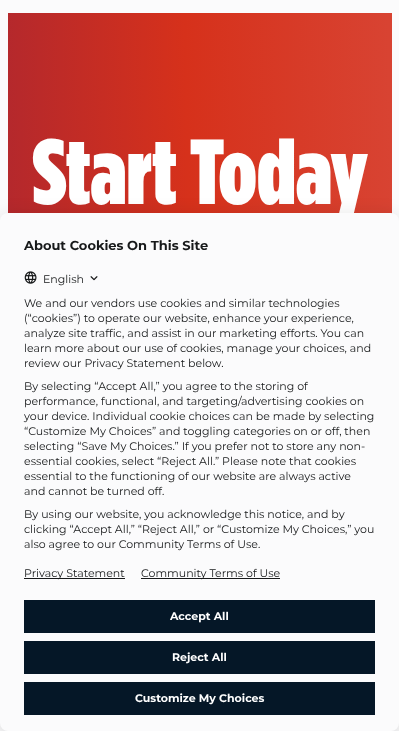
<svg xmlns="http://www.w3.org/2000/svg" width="399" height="731">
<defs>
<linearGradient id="g1" gradientUnits="userSpaceOnUse" x1="0.6" y1="375" x2="399" y2="367"><stop offset="0.01" stop-color="#b3282d"/><stop offset="0.48" stop-color="#d6311b"/><stop offset="0.99" stop-color="#d84332"/></linearGradient>
</defs>
<rect width="100%" height="100%" fill="#fbfbfc"/>
<rect x="8" y="13" width="384" height="201" fill="url(#g1)"/>
<text x="32" y="204" style="font-family:'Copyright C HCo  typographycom';font-size:92px;font-weight:500;fill:#fff">Start Today</text>
<rect y="218" width="399" height="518" rx="8" fill="#00000026" filter="blur(10px)"/>
<rect y="213" width="399" height="518" rx="8" fill="#fbfbfc"/>
<text x="24" y="250" style="font-family:Montserrat;font-size:13px;font-weight:bold;fill:#17191a">About Cookies On This Site</text>
<image x="24" y="271" width="13" height="13" href="media/1.png"/>
<text x="43" y="283" style="font-family:Montserrat;font-size:11px;fill:#17191a">English</text>
<image x="90" y="276" width="8" height="5" href="media/2.png"/>
<text x="24" y="307" style="font-family:Montserrat;font-size:11px;fill:#17191a">We and our vendors use cookies and similar technologies</text>
<text x="24" y="322" style="font-family:Montserrat;font-size:11px;fill:#17191a">(“cookies”) to operate our website, enhance your experience,</text>
<text x="24" y="337" style="font-family:Montserrat;font-size:11px;fill:#17191a">analyze site traffic, and assist in our marketing efforts. You can</text>
<text x="24" y="352" style="font-family:Montserrat;font-size:11px;fill:#17191a">learn more about our use of cookies, manage your choices, and</text>
<text x="24" y="367" style="font-family:Montserrat;font-size:11px;fill:#17191a">review our Privacy Statement below.</text>
<text x="24" y="390" style="font-family:Montserrat;font-size:11px;fill:#17191a">By selecting “Accept All,” you agree to the storing of</text>
<text x="24" y="405" style="font-family:Montserrat;font-size:11px;fill:#17191a">performance, functional, and targeting/advertising cookies on</text>
<text x="24" y="420" style="font-family:Montserrat;font-size:11px;fill:#17191a">your device. Individual cookie choices can be made by selecting</text>
<text x="24" y="435" style="font-family:Montserrat;font-size:11px;fill:#17191a">“Customize My Choices” and toggling categories on or off, then</text>
<text x="24" y="450" style="font-family:Montserrat;font-size:11px;fill:#17191a">selecting “Save My Choices.” If you prefer not to store any non-</text>
<text x="24" y="465" style="font-family:Montserrat;font-size:11px;fill:#17191a">essential cookies, select “Reject All.” Please note that cookies</text>
<text x="24" y="480" style="font-family:Montserrat;font-size:11px;fill:#17191a">essential to the functioning of our website are always active</text>
<text x="24" y="495" style="font-family:Montserrat;font-size:11px;fill:#17191a">and cannot be turned off.</text>
<text x="24" y="518" style="font-family:Montserrat;font-size:11px;fill:#17191a">By using our website, you acknowledge this notice, and by</text>
<text x="24" y="533" style="font-family:Montserrat;font-size:11px;fill:#17191a">clicking “Accept All,” “Reject All,” or “Customize My Choices,” you</text>
<text x="24" y="548" style="font-family:Montserrat;font-size:11px;fill:#17191a">also agree to our Community Terms of Use.</text>
<rect x="24" y="578" width="101" height="1" fill="#17191a"/>
<text x="24" y="577" style="font-family:Montserrat;font-size:11px;fill:#17191a">Privacy Statement</text>
<rect x="141" y="578" width="139" height="1" fill="#17191a"/>
<text x="141" y="577" style="font-family:Montserrat;font-size:11px;fill:#17191a">Community Terms of Use</text>
<rect x="24" y="600" width="351" height="33" fill="#051727"/>
<text x="170" y="620" style="font-family:Montserrat;font-size:11px;font-weight:bold;fill:#fff">Accept All</text>
<rect x="24" y="641" width="351" height="33" fill="#051727"/>
<text x="172" y="661" style="font-family:Montserrat;font-size:11px;font-weight:bold;fill:#fff">Reject All</text>
<rect x="24" y="682" width="351" height="33" fill="#051727"/>
<text x="135" y="702" style="font-family:Montserrat;font-size:11px;font-weight:bold;fill:#fff">Customize My Choices</text>
</svg>
